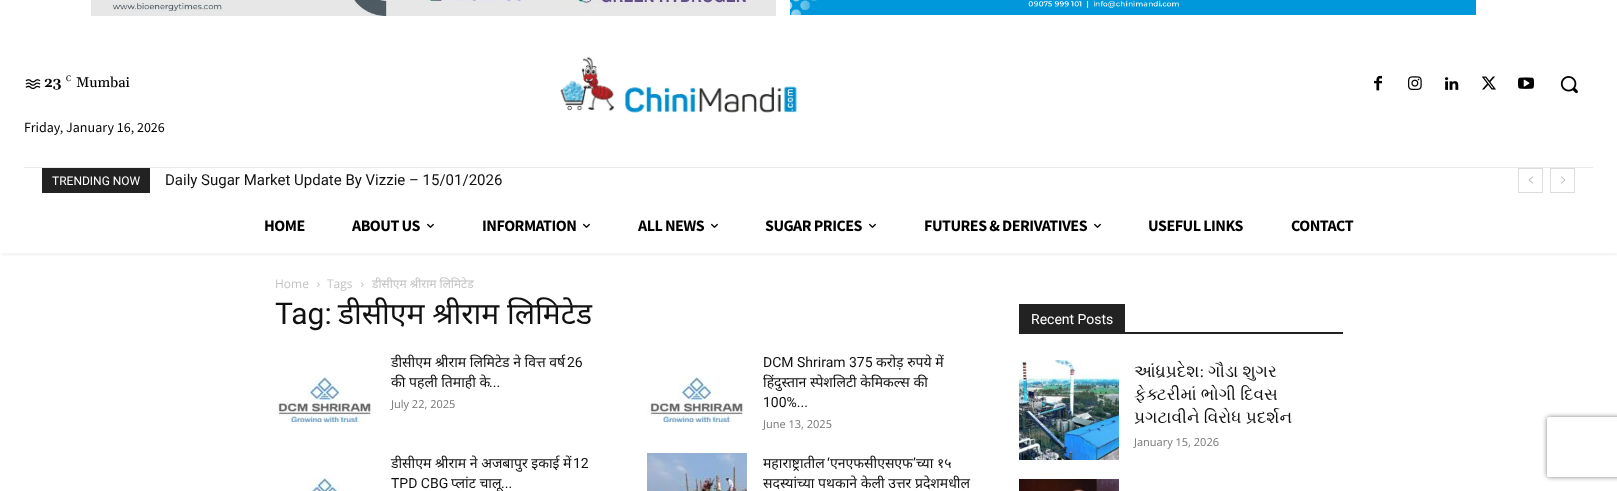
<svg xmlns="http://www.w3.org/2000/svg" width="1617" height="491">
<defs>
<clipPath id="clip1"><rect x="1" y="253" width="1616" height="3"/></clipPath>
<clipPath id="clip2"><path d="M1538 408h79v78h-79zm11 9h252c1 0 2 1 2 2v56c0 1-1 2-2 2h-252c-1 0-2-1-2-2v-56c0-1 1-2 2-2z" clip-rule="evenodd"/></clipPath>
</defs>
<rect width="100%" height="100%" fill="#fff"/>
<image x="91" y="0" width="685" height="16" href="media/1.png"/>
<image x="790" y="0" width="686" height="15" href="media/2.png"/>
<image x="25" y="79" width="16" height="11" href="media/3.png"/>
<text x="44" y="87" style="font-family:Gelasio;font-size:14px;font-weight:bold;fill:#000">23</text>
<text x="66" y="81" style="font-family:Gelasio;font-size:8px;fill:#000">C</text>
<text x="76" y="87" style="font-family:Gelasio;font-size:14px;font-weight:500;fill:#000">Mumbai</text>
<image x="560" y="57" width="238" height="56" href="media/4.png"/>
<image x="1374" y="75" width="8" height="16" href="media/5.png"/>
<image x="1408" y="76" width="14" height="14" href="media/6.png"/>
<image x="1445" y="77" width="14" height="13" href="media/7.png"/>
<image x="1481" y="76" width="15" height="14" href="media/8.png"/>
<image x="1518" y="77" width="16" height="12" href="media/9.png"/>
<image x="1560" y="76" width="18" height="18" href="media/10.png"/>
<rect x="24" y="167" width="1569" height="1" fill="#eaeaea"/>
<rect x="42" y="168" width="108" height="25" fill="#222"/>
<rect x="1518.5" y="168.5" width="24" height="24" fill="none" stroke="#dcdcdc"/>
<image x="1528" y="176" width="5" height="8" href="media/11.png"/>
<rect x="1550.5" y="168.5" width="24" height="24" fill="none" stroke="#dcdcdc"/>
<image x="1561" y="176" width="5" height="8" href="media/12.png"/>
<g clip-path="url(#clip1)">
<rect x="1" y="118" width="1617" height="137" fill="#0000000f" filter="blur(2px)"/>
</g>
<text x="24" y="132" style="font-family:Source Sans Pro;font-size:14px;fill:#000">Friday, January 16, 2026</text>
<text x="52" y="185" style="font-family:Roboto;font-size:12px;fill:#fff">TRENDING NOW</text>
<text x="165" y="185" style="font-family:Roboto;font-size:15px;fill:#111">Daily Sugar Market Update By Vizzie – 15/01/2026</text>
<text x="264" y="231" style="font-family:Source Sans Pro;font-size:16px;font-weight:bold;letter-spacing:-0.5px;fill:#000">HOME</text>
<text x="352" y="231" style="font-family:Source Sans Pro;font-size:16px;font-weight:bold;letter-spacing:-0.5px;fill:#000">ABOUT US</text>
<image x="427" y="223" width="7" height="5" href="media/13.png"/>
<text x="482" y="231" style="font-family:Source Sans Pro;font-size:16px;font-weight:bold;letter-spacing:-0.5px;fill:#000">INFORMATION</text>
<image x="583" y="223" width="7" height="5" href="media/13.png"/>
<text x="638" y="231" style="font-family:Source Sans Pro;font-size:16px;font-weight:bold;letter-spacing:-0.5px;fill:#000">ALL NEWS</text>
<image x="711" y="223" width="7" height="5" href="media/13.png"/>
<text x="765" y="231" style="font-family:Source Sans Pro;font-size:16px;font-weight:bold;letter-spacing:-0.5px;fill:#000">SUGAR PRICES</text>
<image x="869" y="223" width="7" height="5" href="media/13.png"/>
<text x="924" y="231" style="font-family:Source Sans Pro;font-size:16px;font-weight:bold;letter-spacing:-0.5px;fill:#000">FUTURES &amp; DERIVATIVES</text>
<image x="1094" y="223" width="7" height="5" href="media/13.png"/>
<text x="1148" y="231" style="font-family:Source Sans Pro;font-size:16px;font-weight:bold;letter-spacing:-0.5px;fill:#000">USEFUL LINKS</text>
<text x="1291" y="231" style="font-family:Source Sans Pro;font-size:16px;font-weight:bold;letter-spacing:-0.5px;fill:#000">CONTACT</text>
<text x="275" y="288" style="font-family:Open Sans;font-size:12px;fill:#c3c3c3">Home</text>
<image x="317" y="282" width="3" height="5" href="media/14.png"/>
<text x="327" y="288" style="font-family:Open Sans;font-size:12px;fill:#c3c3c3">Tags</text>
<image x="361" y="282" width="3" height="5" href="media/14.png"/>
<text x="372" y="288" style="font-family:Noto Sans;font-size:12px;fill:#c3c3c3">डीसीएम श्रीराम लिमिटेड</text>
<text x="275" y="324" style="font-family:Roboto;font-size:30px;fill:#111">Tag:</text>
<text x="338" y="324" style="font-family:Noto Sans;font-size:30px;fill:#111">डीसीएम श्रीराम लिमिटेड</text>
<image x="275" y="376" width="96" height="46" href="media/15.png"/>
<text x="391" y="367" style="font-family:Noto Sans;font-size:14px;fill:#111">डीसीएम श्रीराम लिमिटेड ने वित्त वर्ष</text>
<text x="567" y="367" style="font-family:Roboto;font-size:14px;fill:#111">26</text>
<text x="391" y="387" style="font-family:Noto Sans;font-size:14px;fill:#111">की पहली तिमाही के</text>
<text x="489" y="387" style="font-family:Roboto;font-size:14px;fill:#111">...</text>
<text x="391" y="408" style="font-family:Open Sans;font-size:11px;fill:#767676">July 22, 2025</text>
<image x="647" y="376" width="96" height="46" href="media/15.png"/>
<text x="763" y="367" style="font-family:Roboto;font-size:14px;fill:#111">DCM Shriram 375</text>
<text x="876" y="367" style="font-family:Noto Sans;font-size:14px;fill:#111">करोड़ रुपये में</text>
<text x="763" y="387" style="font-family:Noto Sans;font-size:14px;fill:#111">हिंदुस्तान स्पेशलिटी केमिकल्स की</text>
<text x="763" y="407" style="font-family:Roboto;font-size:14px;fill:#111">100%...</text>
<text x="763" y="428" style="font-family:Open Sans;font-size:11px;fill:#767676">June 13, 2025</text>
<image x="307" y="477" width="32" height="14" href="media/16.png"/>
<text x="391" y="468" style="font-family:Noto Sans;font-size:14px;fill:#111">डीसीएम श्रीराम ने अजबापुर इकाई में</text>
<text x="573" y="468" style="font-family:Roboto;font-size:14px;fill:#111">12</text>
<text x="391" y="488" style="font-family:Roboto;font-size:14px;fill:#111">TPD CBG</text>
<text x="451" y="488" style="font-family:Noto Sans;font-size:14px;fill:#111">प्लांट चालू</text>
<text x="501" y="488" style="font-family:Roboto;font-size:14px;fill:#111">...</text>
<image x="647" y="453" width="100" height="38" href="media/17.png"/>
<text x="763" y="468" style="font-family:Noto Sans;font-size:14px;fill:#111">महाराष्ट्रातील</text>
<text x="827" y="468" style="font-family:Roboto;font-size:14px;fill:#111">‘</text>
<text x="830" y="468" style="font-family:Noto Sans;font-size:14px;fill:#111">एनएफसीएसएफ</text>
<text x="913" y="468" style="font-family:Roboto;font-size:14px;fill:#111">’</text>
<text x="916" y="468" style="font-family:Noto Sans;font-size:14px;fill:#111">च्या १५</text>
<text x="763" y="488" style="font-family:Noto Sans;font-size:14px;fill:#111">सदस्यांच्या पथकाने केली उत्तर प्रदेशमधील</text>
<rect x="1019" y="332" width="324" height="2" fill="#222"/>
<rect x="1019" y="304" width="106" height="28" fill="#222"/>
<text x="1031" y="324" style="font-family:Roboto;font-size:14px;fill:#fff">Recent Posts</text>
<image x="1019" y="360" width="100" height="100" href="media/18.png"/>
<text x="1134" y="377" style="font-family:FreeSerif;font-size:17px;fill:#111">આંધ્રપ્રદેશ: ગૌડા શુગર</text>
<text x="1134" y="400" style="font-family:FreeSerif;font-size:17px;fill:#111">ફેક્ટરીમાં ભોગી દિવસ</text>
<text x="1134" y="423" style="font-family:FreeSerif;font-size:17px;fill:#111">પ્રગટાવીને વિરોધ પ્રદર્શન</text>
<text x="1134" y="446" style="font-family:Open Sans;font-size:11px;fill:#767676">January 15, 2026</text>
<image x="1019" y="479" width="100" height="12" href="media/19.png"/>
<g clip-path="url(#clip2)">
<rect x="1547" y="417" width="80" height="60" rx="2" fill="#808080" filter="blur(2.5px)"/>
</g>
</svg>
